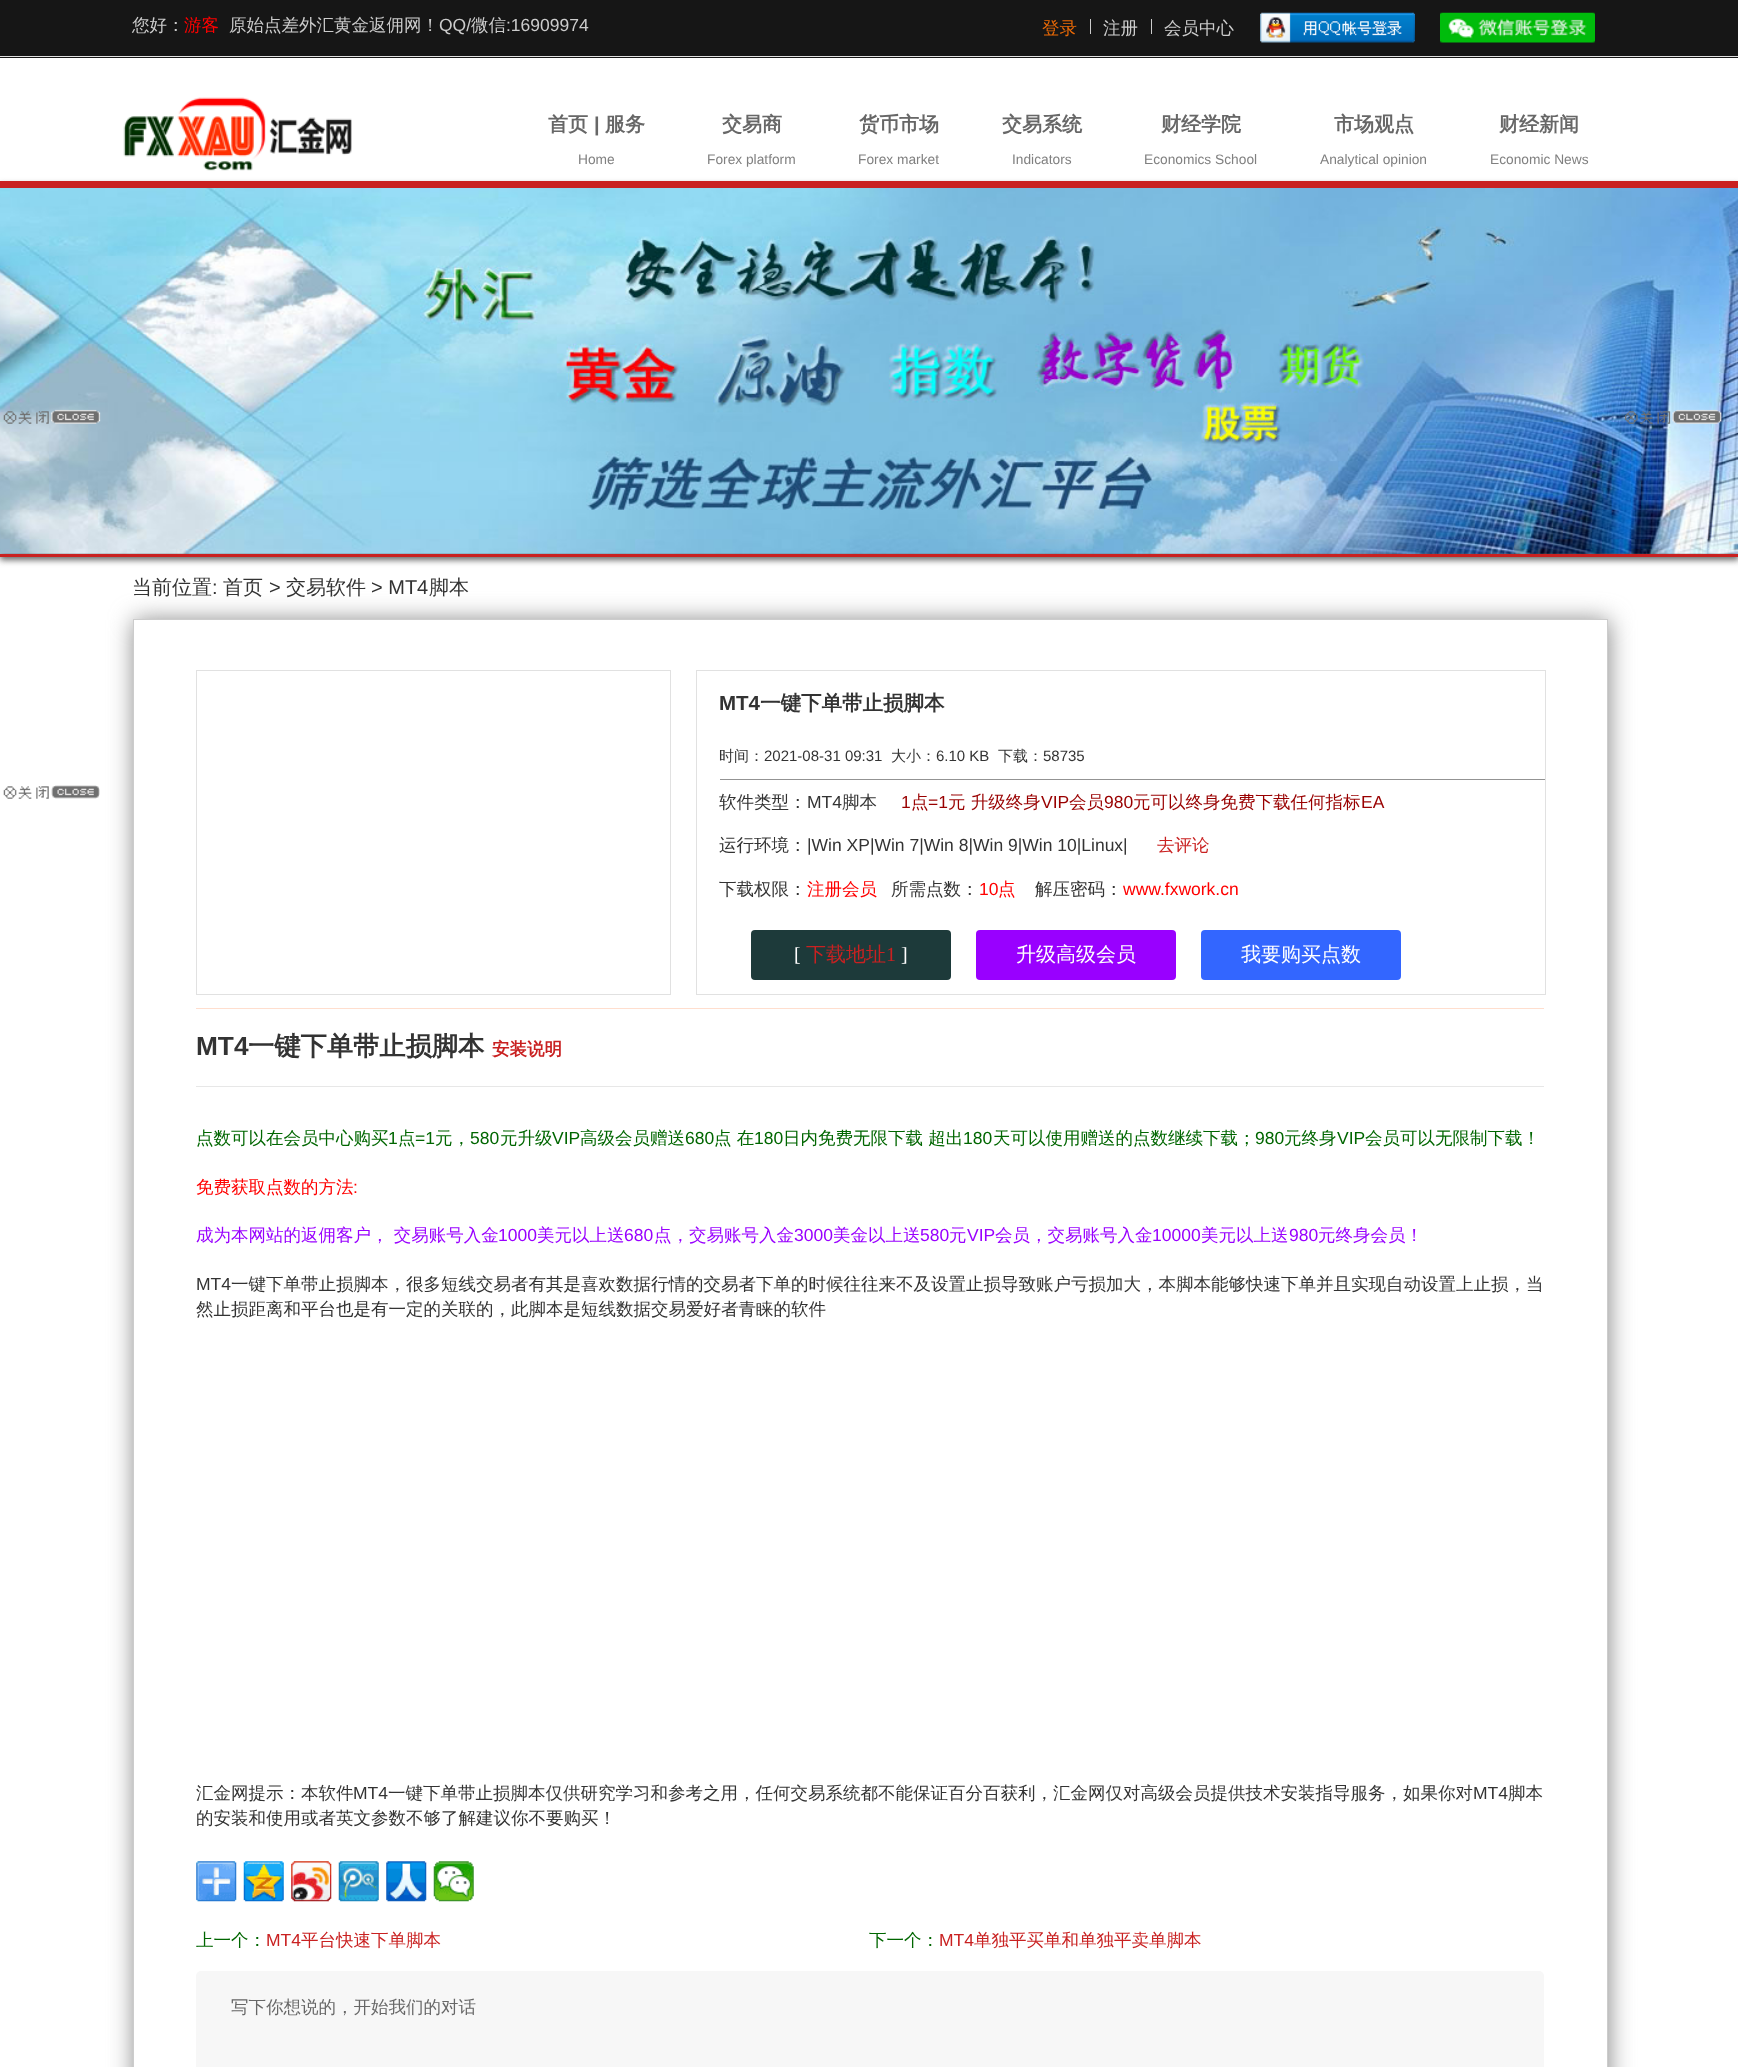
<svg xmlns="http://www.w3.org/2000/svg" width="1738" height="2067">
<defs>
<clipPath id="clip1"><path d="M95 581h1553v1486h-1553zm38 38h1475v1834h-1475z" clip-rule="evenodd"/></clipPath>
</defs>
<rect width="100%" height="100%" fill="#fff"/>
<rect width="1738" height="58" fill="#161616"/>
<rect y="56" width="1738" height="1" fill="#e1e1e1"/>
<text x="132" y="31" style="font-family:WenQuanYi Zen Hei;font-size:17.5px;font-weight:500;fill:#ccc">您好：</text>
<text x="184" y="31" style="font-family:WenQuanYi Zen Hei;font-size:17.5px;font-weight:500;fill:#f00">游客</text>
<text x="229" y="31" style="font-family:WenQuanYi Zen Hei;font-size:17.5px;font-weight:500;fill:#ccc">原始点差外汇黄金返佣网！</text>
<text x="439" y="31" style="font-family:Liberation Sans;font-size:17.5px;fill:#ccc">QQ/</text>
<text x="471" y="31" style="font-family:WenQuanYi Zen Hei;font-size:17.5px;font-weight:500;fill:#ccc">微信</text>
<text x="506" y="31" style="font-family:Liberation Sans;font-size:17.5px;fill:#ccc">:16909974</text>
<text x="1042" y="34" style="font-family:WenQuanYi Zen Hei;font-size:17.5px;font-weight:500;fill:#e96906">登录</text>
<rect x="1090" y="19" width="1" height="15" fill="#ccc"/>
<text x="1103" y="34" style="font-family:WenQuanYi Zen Hei;font-size:17.5px;font-weight:500;fill:#ccc">注册</text>
<rect x="1151" y="19" width="1" height="15" fill="#ccc"/>
<text x="1164" y="34" style="font-family:WenQuanYi Zen Hei;font-size:17.5px;font-weight:500;fill:#ccc">会员中心</text>
<image x="1260" y="12" width="155" height="31" href="media/1.png"/>
<image x="1440" y="12" width="155" height="31" href="media/2.png"/>
<image x="123" y="97" width="229" height="74" href="media/3.png"/>
<text x="548" y="131" style="font-family:WenQuanYi Zen Hei;font-size:20px;font-weight:bold;fill:#676767">首页</text>
<text x="594" y="131" style="font-family:Liberation Sans;font-size:20px;font-weight:bold;fill:#676767">|</text>
<text x="605" y="131" style="font-family:WenQuanYi Zen Hei;font-size:20px;font-weight:bold;fill:#676767">服务</text>
<text x="578" y="164" style="font-family:Liberation Sans;font-size:13.75px;fill:#808080">Home</text>
<text x="722" y="131" style="font-family:WenQuanYi Zen Hei;font-size:20px;font-weight:bold;fill:#676767">交易商</text>
<text x="707" y="164" style="font-family:Liberation Sans;font-size:13.75px;fill:#808080">Forex platform</text>
<text x="859" y="131" style="font-family:WenQuanYi Zen Hei;font-size:20px;font-weight:bold;fill:#676767">货币市场</text>
<text x="858" y="164" style="font-family:Liberation Sans;font-size:13.75px;fill:#808080">Forex market</text>
<text x="1002" y="131" style="font-family:WenQuanYi Zen Hei;font-size:20px;font-weight:bold;fill:#676767">交易系统</text>
<text x="1012" y="164" style="font-family:Liberation Sans;font-size:13.75px;fill:#808080">Indicators</text>
<text x="1161" y="131" style="font-family:WenQuanYi Zen Hei;font-size:20px;font-weight:bold;fill:#676767">财经学院</text>
<text x="1144" y="164" style="font-family:Liberation Sans;font-size:13.75px;fill:#808080">Economics School</text>
<text x="1334" y="131" style="font-family:WenQuanYi Zen Hei;font-size:20px;font-weight:bold;fill:#676767">市场观点</text>
<text x="1320" y="164" style="font-family:Liberation Sans;font-size:13.75px;fill:#808080">Analytical opinion</text>
<text x="1499" y="131" style="font-family:WenQuanYi Zen Hei;font-size:20px;font-weight:bold;fill:#676767">财经新闻</text>
<text x="1490" y="164" style="font-family:Liberation Sans;font-size:13.75px;fill:#808080">Economic News</text>
<rect y="185" width="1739" height="375" fill="#666" filter="blur(3px)"/>
<image x="0" y="188" width="1738" height="366" href="media/4.png"/>
<rect y="181" width="1738" height="7" fill="#c92121"/>
<rect y="554" width="1738" height="3" fill="#c92121"/>
<image x="3" y="409" width="98" height="15" href="media/5.png"/>
<image x="1624" y="409" width="98" height="15" href="media/6.png"/>
<g clip-path="url(#clip1)">
<rect x="134" y="620" width="1475" height="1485" fill="#888" filter="blur(12.5px)"/>
</g>
<image x="3" y="785" width="97" height="14" href="media/7.png"/>
<text x="132" y="594" style="font-family:WenQuanYi Zen Hei;font-size:20px;font-weight:500;fill:#333">当前位置</text>
<text x="212" y="594" style="font-family:Liberation Sans;font-size:20px;fill:#333">:</text>
<text x="223" y="594" style="font-family:WenQuanYi Zen Hei;font-size:20px;font-weight:500;fill:#333">首页</text>
<text x="269" y="594" style="font-family:Liberation Sans;font-size:20px;fill:#333">&gt;</text>
<text x="286" y="594" style="font-family:WenQuanYi Zen Hei;font-size:20px;font-weight:500;fill:#333">交易软件</text>
<text x="371" y="594" style="font-family:Liberation Sans;font-size:20px;fill:#333">&gt; MT4</text>
<text x="429" y="594" style="font-family:WenQuanYi Zen Hei;font-size:20px;font-weight:500;fill:#333">脚本</text>
<rect x="133.5" y="619.5" width="1474" height="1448" fill="none" stroke="#ccc"/>
<rect x="196.5" y="670.5" width="474" height="324" fill="none" stroke="#e1e1e1"/>
<rect x="696.5" y="670.5" width="849" height="324" fill="none" stroke="#e1e1e1"/>
<text x="719" y="710" style="font-family:Liberation Sans;font-size:20.5px;font-weight:bold;fill:#333">MT4</text>
<text x="760" y="710" style="font-family:WenQuanYi Zen Hei;font-size:20.5px;font-weight:bold;fill:#333">一键下单带止损脚本</text>
<rect x="720" y="779" width="825" height="1" fill="#939393"/>
<text x="719" y="761" style="font-family:WenQuanYi Zen Hei;font-size:15px;font-weight:500;fill:#333">时间：</text>
<text x="764" y="761" style="font-family:Liberation Sans;font-size:15px;fill:#333">2021-08-31 09:31</text>
<text x="891" y="761" style="font-family:WenQuanYi Zen Hei;font-size:15px;font-weight:500;fill:#333">大小：</text>
<text x="936" y="761" style="font-family:Liberation Sans;font-size:15px;fill:#333">6.10 KB</text>
<text x="998" y="761" style="font-family:WenQuanYi Zen Hei;font-size:15px;font-weight:500;fill:#333">下载：</text>
<text x="1043" y="761" style="font-family:Liberation Sans;font-size:15px;fill:#333">58735</text>
<text x="719" y="808" style="font-family:WenQuanYi Zen Hei;font-size:17.5px;font-weight:500;fill:#333">软件类型：</text>
<text x="807" y="808" style="font-family:Liberation Sans;font-size:17.5px;fill:#333">MT4</text>
<text x="842" y="808" style="font-family:WenQuanYi Zen Hei;font-size:17.5px;font-weight:500;fill:#333">脚本</text>
<text x="901" y="808" style="font-family:Liberation Sans;font-size:17.5px;fill:#900">1</text>
<text x="911" y="808" style="font-family:WenQuanYi Zen Hei;font-size:17.5px;font-weight:500;fill:#900">点</text>
<text x="928" y="808" style="font-family:Liberation Sans;font-size:17.5px;fill:#900">=1</text>
<text x="948" y="808" style="font-family:WenQuanYi Zen Hei;font-size:17.5px;font-weight:500;fill:#900">元 升级终身</text>
<text x="1041" y="808" style="font-family:Liberation Sans;font-size:17.5px;fill:#900">VIP</text>
<text x="1069" y="808" style="font-family:WenQuanYi Zen Hei;font-size:17.5px;font-weight:500;fill:#900">会员</text>
<text x="1104" y="808" style="font-family:Liberation Sans;font-size:17.5px;fill:#900">980</text>
<text x="1133" y="808" style="font-family:WenQuanYi Zen Hei;font-size:17.5px;font-weight:500;fill:#900">元可以终身免费下载任何指标</text>
<text x="1361" y="808" style="font-family:Liberation Sans;font-size:17.5px;fill:#900">EA</text>
<text x="719" y="851" style="font-family:WenQuanYi Zen Hei;font-size:17.5px;font-weight:500;fill:#333">运行环境：</text>
<text x="807" y="851" style="font-family:Liberation Sans;font-size:17.5px;fill:#333">|Win XP|Win 7|Win 8|Win 9|Win 10|Linux|</text>
<text x="1157" y="851" style="font-family:WenQuanYi Zen Hei;font-size:17.5px;font-weight:500;fill:#c92121">去评论</text>
<text x="719" y="895" style="font-family:WenQuanYi Zen Hei;font-size:17.5px;font-weight:500;fill:#333">下载权限：</text>
<text x="807" y="895" style="font-family:WenQuanYi Zen Hei;font-size:17.5px;font-weight:500;fill:#f00">注册会员</text>
<text x="891" y="895" style="font-family:WenQuanYi Zen Hei;font-size:17.5px;font-weight:500;fill:#333">所需点数：</text>
<text x="979" y="895" style="font-family:Liberation Sans;font-size:17.5px;fill:#f00">10</text>
<text x="998" y="895" style="font-family:WenQuanYi Zen Hei;font-size:17.5px;font-weight:500;fill:#f00">点</text>
<text x="1035" y="895" style="font-family:WenQuanYi Zen Hei;font-size:17.5px;font-weight:500;fill:#333">解压密码：</text>
<text x="1123" y="895" style="font-family:Liberation Sans;font-size:17.5px;fill:#f00">www.fxwork.cn</text>
<rect x="751" y="930" width="200" height="50" rx="4" fill="#1d3a3a"/>
<text x="794" y="961" style="font-family:Liberation Serif;font-size:20px;fill:#fff">[</text>
<text x="806" y="961" style="font-family:WenQuanYi Zen Hei;font-size:20px;font-weight:500;fill:#c92121">下载地址</text>
<text x="886" y="961" style="font-family:Liberation Serif;font-size:20px;fill:#c92121">1</text>
<text x="901" y="961" style="font-family:Liberation Serif;font-size:20px;fill:#fff">]</text>
<rect x="976" y="930" width="200" height="50" rx="4" fill="#90f"/>
<text x="1016" y="961" style="font-family:WenQuanYi Zen Hei;font-size:20px;font-weight:500;fill:#fff">升级高级会员</text>
<rect x="1201" y="930" width="200" height="50" rx="4" fill="#36f"/>
<text x="1241" y="961" style="font-family:WenQuanYi Zen Hei;font-size:20px;font-weight:500;fill:#fff">我要购买点数</text>
<rect x="196" y="1008" width="1348" height="1" fill="#ffdece"/>
<text x="196" y="1055" style="font-family:Liberation Sans;font-size:26.25px;font-weight:bold;fill:#333">MT4</text>
<text x="248" y="1055" style="font-family:WenQuanYi Zen Hei;font-size:26.25px;font-weight:bold;fill:#333">一键下单带止损脚本</text>
<text x="492" y="1055" style="font-family:WenQuanYi Zen Hei;font-size:17.5px;font-weight:bold;fill:#c92121">安装说明</text>
<rect x="196" y="1086" width="1348" height="1" fill="#e7e7e7"/>
<text x="196" y="1144" style="font-family:WenQuanYi Zen Hei;font-size:17.5px;font-weight:500;fill:#060">点数可以在会员中心购买</text>
<text x="388" y="1144" style="font-family:Liberation Sans;font-size:17.5px;fill:#060">1</text>
<text x="398" y="1144" style="font-family:WenQuanYi Zen Hei;font-size:17.5px;font-weight:500;fill:#060">点</text>
<text x="415" y="1144" style="font-family:Liberation Sans;font-size:17.5px;fill:#060">=1</text>
<text x="435" y="1144" style="font-family:WenQuanYi Zen Hei;font-size:17.5px;font-weight:500;fill:#060">元，</text>
<text x="470" y="1144" style="font-family:Liberation Sans;font-size:17.5px;fill:#060">580</text>
<text x="500" y="1144" style="font-family:WenQuanYi Zen Hei;font-size:17.5px;font-weight:500;fill:#060">元升级</text>
<text x="552" y="1144" style="font-family:Liberation Sans;font-size:17.5px;fill:#060">VIP</text>
<text x="580" y="1144" style="font-family:WenQuanYi Zen Hei;font-size:17.5px;font-weight:500;fill:#060">高级会员赠送</text>
<text x="685" y="1144" style="font-family:Liberation Sans;font-size:17.5px;fill:#060">680</text>
<text x="714" y="1144" style="font-family:WenQuanYi Zen Hei;font-size:17.5px;font-weight:500;fill:#060">点 在</text>
<text x="754" y="1144" style="font-family:Liberation Sans;font-size:17.5px;fill:#060">180</text>
<text x="783" y="1144" style="font-family:WenQuanYi Zen Hei;font-size:17.5px;font-weight:500;fill:#060">日内免费无限下载 超出</text>
<text x="963" y="1144" style="font-family:Liberation Sans;font-size:17.5px;fill:#060">180</text>
<text x="993" y="1144" style="font-family:WenQuanYi Zen Hei;font-size:17.5px;font-weight:500;fill:#060">天可以使用赠送的点数继续下载；</text>
<text x="1255" y="1144" style="font-family:Liberation Sans;font-size:17.5px;fill:#060">980</text>
<text x="1284" y="1144" style="font-family:WenQuanYi Zen Hei;font-size:17.5px;font-weight:500;fill:#060">元终身</text>
<text x="1337" y="1144" style="font-family:Liberation Sans;font-size:17.5px;fill:#060">VIP</text>
<text x="1365" y="1144" style="font-family:WenQuanYi Zen Hei;font-size:17.5px;font-weight:500;fill:#060">会员可以无限制下载！</text>
<text x="196" y="1193" style="font-family:WenQuanYi Zen Hei;font-size:17.5px;font-weight:500;fill:#f00">免费获取点数的方法</text>
<text x="353" y="1193" style="font-family:Liberation Sans;font-size:17.5px;fill:#f00">:</text>
<text x="196" y="1241" style="font-family:WenQuanYi Zen Hei;font-size:17.5px;font-weight:500;fill:#90f">成为本网站的返佣客户， 交易账号入金</text>
<text x="498" y="1241" style="font-family:Liberation Sans;font-size:17.5px;fill:#90f">1000</text>
<text x="537" y="1241" style="font-family:WenQuanYi Zen Hei;font-size:17.5px;font-weight:500;fill:#90f">美元以上送</text>
<text x="624" y="1241" style="font-family:Liberation Sans;font-size:17.5px;fill:#90f">680</text>
<text x="654" y="1241" style="font-family:WenQuanYi Zen Hei;font-size:17.5px;font-weight:500;fill:#90f">点，交易账号入金</text>
<text x="794" y="1241" style="font-family:Liberation Sans;font-size:17.5px;fill:#90f">3000</text>
<text x="833" y="1241" style="font-family:WenQuanYi Zen Hei;font-size:17.5px;font-weight:500;fill:#90f">美金以上送</text>
<text x="920" y="1241" style="font-family:Liberation Sans;font-size:17.5px;fill:#90f">580</text>
<text x="949" y="1241" style="font-family:WenQuanYi Zen Hei;font-size:17.5px;font-weight:500;fill:#90f">元</text>
<text x="967" y="1241" style="font-family:Liberation Sans;font-size:17.5px;fill:#90f">VIP</text>
<text x="995" y="1241" style="font-family:WenQuanYi Zen Hei;font-size:17.5px;font-weight:500;fill:#90f">会员，交易账号入金</text>
<text x="1152" y="1241" style="font-family:Liberation Sans;font-size:17.5px;fill:#90f">10000</text>
<text x="1201" y="1241" style="font-family:WenQuanYi Zen Hei;font-size:17.5px;font-weight:500;fill:#90f">美元以上送</text>
<text x="1289" y="1241" style="font-family:Liberation Sans;font-size:17.5px;fill:#90f">980</text>
<text x="1318" y="1241" style="font-family:WenQuanYi Zen Hei;font-size:17.5px;font-weight:500;fill:#90f">元终身会员！</text>
<text x="196" y="1290" style="font-family:Liberation Sans;font-size:17.5px;fill:#333">MT4</text>
<text x="231" y="1290" style="font-family:WenQuanYi Zen Hei;font-size:17.5px;font-weight:500;fill:#333">一键下单带止损脚本，很多短线交易者有其是喜欢数据行情的交易者下单的时候往往来不及设置止损导致账户亏损加大，本脚本能够快速下单并且实现自动设置上止损，当</text>
<text x="196" y="1315" style="font-family:WenQuanYi Zen Hei;font-size:17.5px;font-weight:500;fill:#333">然止损距离和平台也是有一定的关联的，此脚本是短线数据交易爱好者青睐的软件</text>
<text x="196" y="1799" style="font-family:WenQuanYi Zen Hei;font-size:17.5px;font-weight:500;fill:#333">汇金网提示：本软件</text>
<text x="353" y="1799" style="font-family:Liberation Sans;font-size:17.5px;fill:#333">MT4</text>
<text x="388" y="1799" style="font-family:WenQuanYi Zen Hei;font-size:17.5px;font-weight:500;fill:#333">一键下单带止损脚本仅供研究学习和参考之用，任何交易系统都不能保证百分百获利，汇金网仅对高级会员提供技术安装指导服务，如果你对</text>
<text x="1473" y="1799" style="font-family:Liberation Sans;font-size:17.5px;fill:#333">MT4</text>
<text x="1508" y="1799" style="font-family:WenQuanYi Zen Hei;font-size:17.5px;font-weight:500;fill:#333">脚本</text>
<text x="196" y="1824" style="font-family:WenQuanYi Zen Hei;font-size:17.5px;font-weight:500;fill:#333">的安装和使用或者英文参数不够了解建议你不要购买！</text>
<image x="196" y="1861" width="41" height="41" href="media/8.png"/>
<image x="243" y="1861" width="41" height="41" href="media/9.png"/>
<image x="291" y="1861" width="41" height="41" href="media/10.png"/>
<image x="338" y="1861" width="41" height="41" href="media/11.png"/>
<image x="386" y="1861" width="41" height="41" href="media/12.png"/>
<image x="433" y="1861" width="41" height="41" href="media/13.png"/>
<text x="196" y="1946" style="font-family:WenQuanYi Zen Hei;font-size:17.5px;font-weight:500;fill:#060">上一个：</text>
<text x="266" y="1946" style="font-family:Liberation Sans;font-size:17.5px;fill:#c92121">MT4</text>
<text x="301" y="1946" style="font-family:WenQuanYi Zen Hei;font-size:17.5px;font-weight:500;fill:#c92121">平台快速下单脚本</text>
<text x="869" y="1946" style="font-family:WenQuanYi Zen Hei;font-size:17.5px;font-weight:500;fill:#060">下一个：</text>
<text x="939" y="1946" style="font-family:Liberation Sans;font-size:17.5px;fill:#c92121">MT4</text>
<text x="974" y="1946" style="font-family:WenQuanYi Zen Hei;font-size:17.5px;font-weight:500;fill:#c92121">单独平买单和单独平卖单脚本</text>
<rect x="196" y="1971" width="1348" height="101" rx="5" fill="#f7f7f7"/>
<text x="231" y="2013" style="font-family:WenQuanYi Zen Hei;font-size:17.5px;font-weight:500;fill:#676767">写下你想说的，开始我们的对话</text>
</svg>
